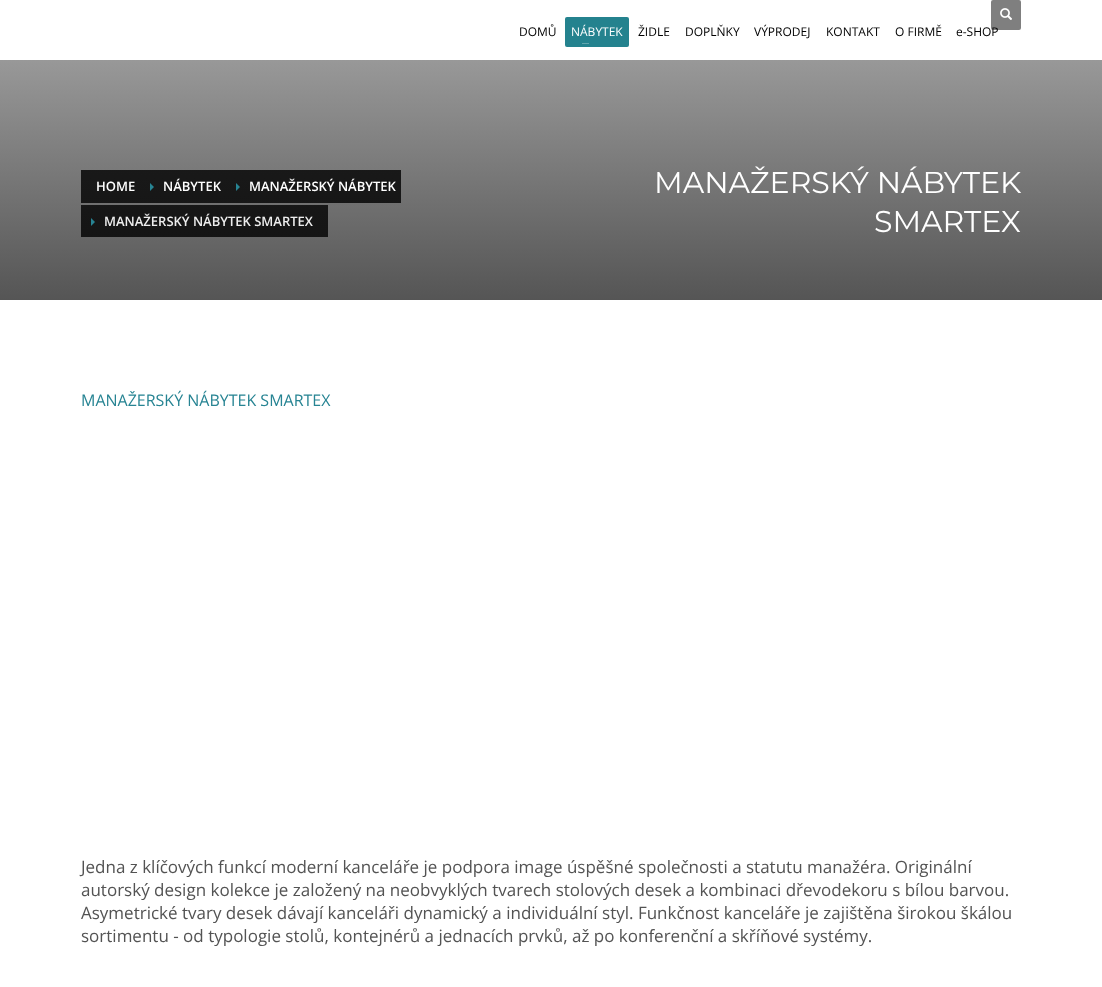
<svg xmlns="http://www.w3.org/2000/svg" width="1102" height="987">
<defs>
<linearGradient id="g1" gradientUnits="userSpaceOnUse" x1="551" y1="0" x2="551" y2="300"><stop offset="0" stop-color="#a9a9a9"/><stop offset="1" stop-color="#555"/></linearGradient>
<linearGradient id="g2" gradientUnits="userSpaceOnUse" x1="551" y1="0" x2="551" y2="300"><stop offset="0" stop-color="#222"/><stop offset="1" stop-color="#111"/></linearGradient>
</defs>
<rect width="100%" height="100%" fill="#fff"/>
<text x="956" y="36" style="font-family:Open Sans;font-size:12px;fill:#000">e-SHOP</text>
<rect x="991" width="30" height="30" rx="2" fill="#00000080"/>
<image x="1000" y="8" width="12" height="12" href="media/1.png"/>
<text x="519" y="36" style="font-family:Open Sans;font-size:12px;fill:#000">DOMŮ</text>
<rect x="565" y="17" width="64" height="30" rx="2" fill="#24828e"/>
<text x="571" y="36" style="font-family:Open Sans;font-size:12px;fill:#fff">NÁBYTEK</text>
<rect x="582" y="43" width="7" height="1" fill="#61a5ae"/>
<text x="638" y="36" style="font-family:Open Sans;font-size:12px;fill:#000">ŽIDLE</text>
<text x="685" y="36" style="font-family:Open Sans;font-size:12px;fill:#000">DOPLŇKY</text>
<text x="754" y="36" style="font-family:Open Sans;font-size:12px;fill:#000">VÝPRODEJ</text>
<text x="826" y="36" style="font-family:Open Sans;font-size:12px;fill:#000">KONTAKT</text>
<text x="895" y="36" style="font-family:Open Sans;font-size:12px;fill:#000">O FIRMĚ</text>
<rect y="60" width="1102" height="240" fill="url(#g1)"/>
<rect x="81" y="205" width="247" height="32" fill="url(#g2)"/>
<rect x="226" y="170" width="175" height="33" fill="url(#g2)"/>
<rect x="140" y="170" width="86" height="33" fill="url(#g2)"/>
<rect x="81" y="170" width="59" height="33" fill="url(#g2)"/>
<text x="96" y="191" style="font-family:Open Sans;font-size:13px;font-weight:600;fill:#fff">HOME</text>
<path d="M150 191v-8l4 4z" fill="#278493"/>
<text x="163" y="191" style="font-family:Open Sans;font-size:13px;font-weight:600;fill:#fff">NÁBYTEK</text>
<path d="M236 191v-8l4 4z" fill="#278493"/>
<text x="249" y="191" style="font-family:Open Sans;font-size:13px;font-weight:600;fill:#fff">MANAŽERSKÝ NÁBYTEK</text>
<path d="M91 226v-8l4 4z" fill="#278493"/>
<text x="104" y="226" style="font-family:Open Sans;font-size:13px;font-weight:600;fill:#eee">MANAŽERSKÝ NÁBYTEK SMARTEX</text>
<text x="654" y="193" style="font-family:Montserrat;font-size:30px;fill:#fff">MANAŽERSKÝ NÁBYTEK</text>
<text x="874" y="232" style="font-family:Montserrat;font-size:30px;fill:#fff">SMARTEX</text>
<text x="81" y="406" style="font-family:Open Sans;font-size:16px;fill:#278493">MANAŽERSKÝ NÁBYTEK SMARTEX</text>
<text x="81" y="873" style="font-family:Open Sans;font-size:17px;fill:#535353">Jedna z klíčových funkcí moderní kanceláře je podpora image úspěšné společnosti a statutu manažéra. Originální</text>
<text x="81" y="896" style="font-family:Open Sans;font-size:17px;fill:#535353">autorský design kolekce je založený na neobvyklých tvarech stolových desek a kombinaci dřevodekoru s bílou barvou.</text>
<text x="81" y="919" style="font-family:Open Sans;font-size:17px;fill:#535353">Asymetrické tvary desek dávají kanceláři dynamický a individuální styl. Funkčnost kanceláře je zajištěna širokou škálou</text>
<text x="81" y="942" style="font-family:Open Sans;font-size:17px;fill:#535353">sortimentu - od typologie stolů, kontejnérů a jednacích prvků, až po konferenční a skříňové systémy.</text>
</svg>
